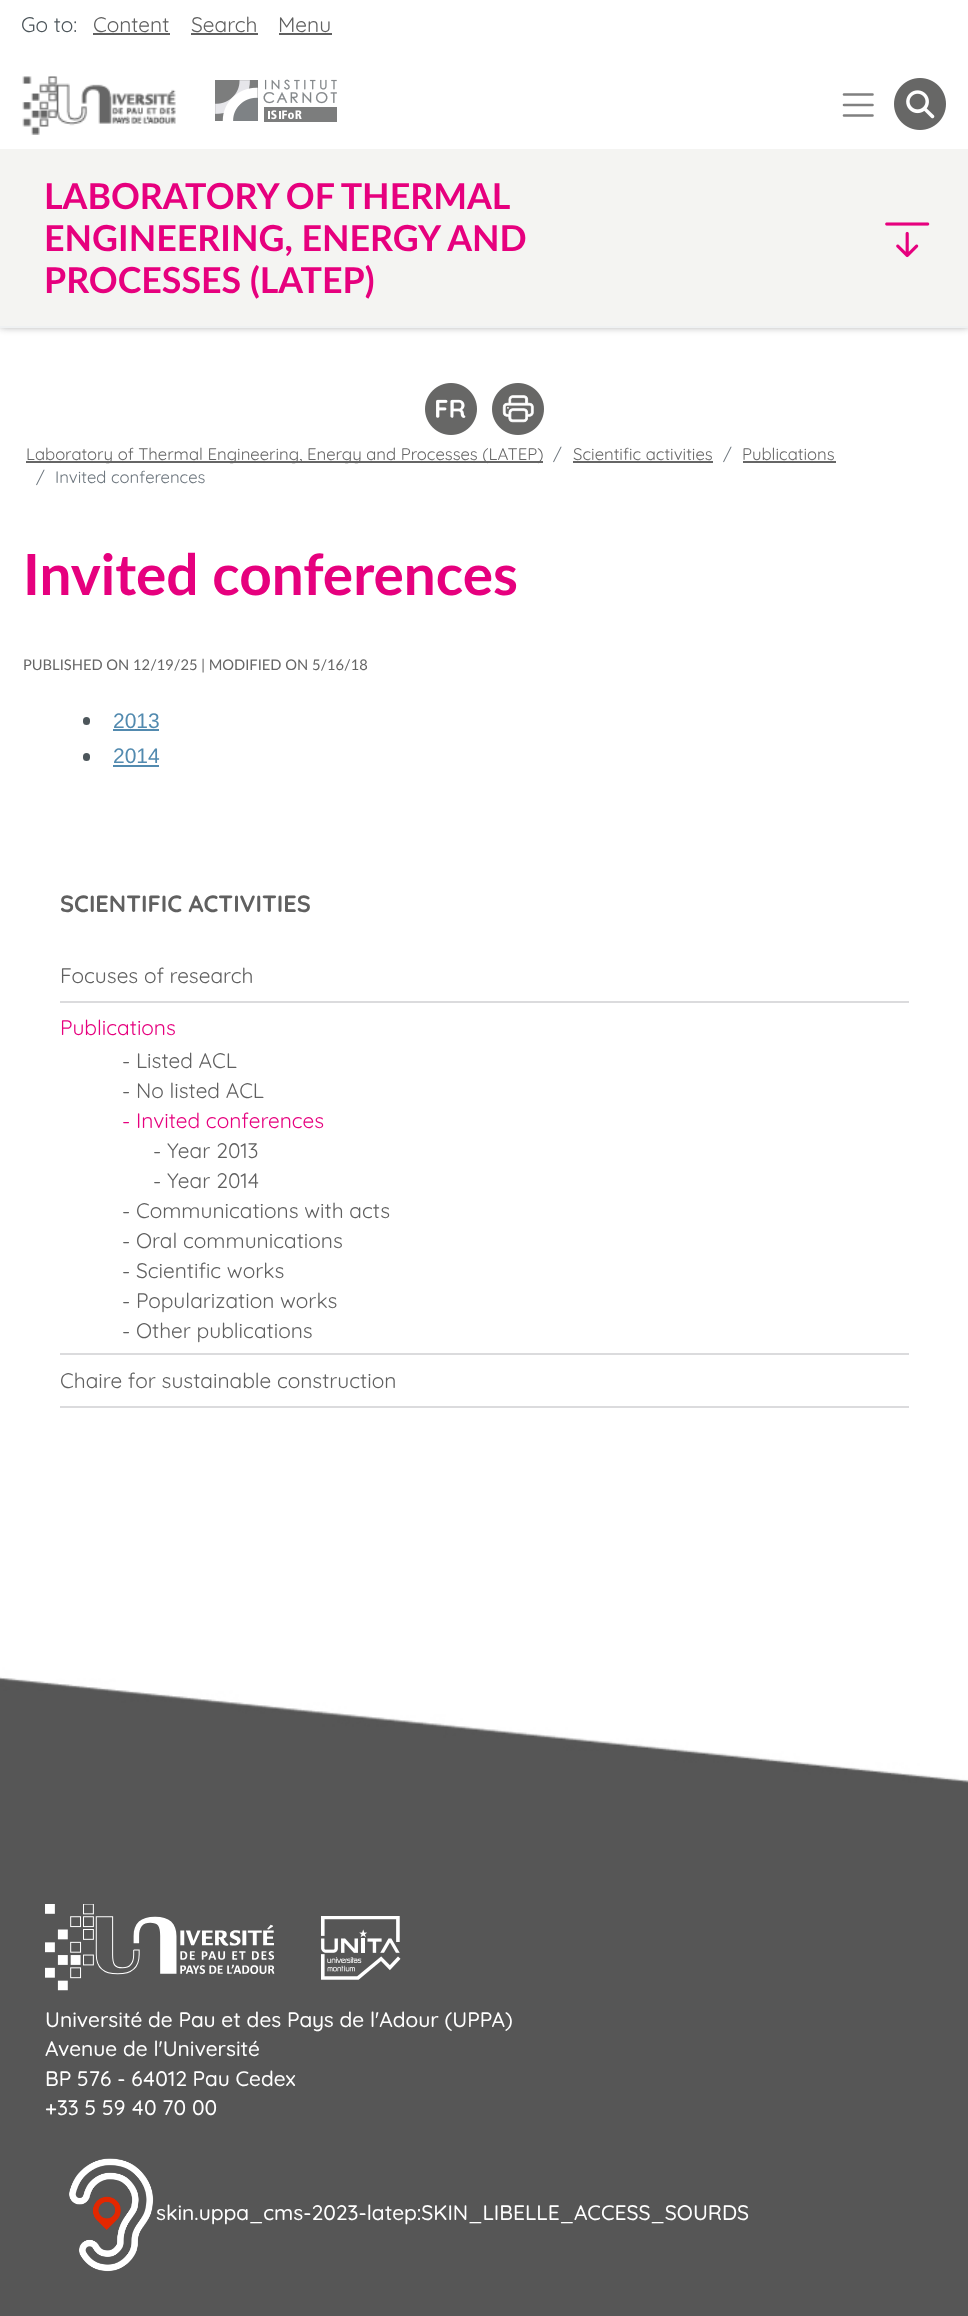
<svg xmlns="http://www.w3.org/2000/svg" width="968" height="2316">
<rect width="100%" height="100%" fill="#fff"/>
<rect width="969" height="326" fill="#8a8a8a" filter="blur(4px)"/>
<rect width="968" height="149" fill="#fff"/>
<text x="21" y="32" style="font-family:Quicksand;font-size:21px;font-weight:300;fill:#4d565b">Go to:</text>
<text x="93" y="32" style="font-family:Quicksand;font-size:21px;font-weight:300;fill:#606060">Content</text>
<rect x="93" y="33" width="77" height="2" fill="#606060"/>
<text x="191" y="32" style="font-family:Quicksand;font-size:21px;font-weight:300;fill:#606060">Search</text>
<rect x="191" y="33" width="67" height="2" fill="#606060"/>
<text x="278" y="32" style="font-family:Quicksand;font-size:21px;font-weight:300;fill:#606060">Menu</text>
<rect x="279" y="33" width="53" height="2" fill="#606060"/>
<image x="22" y="76" width="154" height="59" href="media/1.png"/>
<image x="215" y="79" width="122" height="43" href="media/2.png"/>
<path d="M844 94.5h28.5m-28.5 10.5h28.5m-28.5 10.5h28.5" fill="none" stroke="#808080" stroke-width="2.6" stroke-linecap="round"/>
<image x="894" y="78" width="52" height="52" href="media/3.png"/>
<rect y="149" width="968" height="177" fill="#f4f4f2"/>
<text x="44" y="209" word-spacing="-1" style="font-family:Lato;font-size:35.75px;font-weight:bold;fill:#e6007e">LABORATORY OF THERMAL</text>
<text x="44" y="251" style="font-family:Lato;font-size:35.75px;font-weight:bold;fill:#e6007e">ENGINEERING, ENERGY AND</text>
<text x="44" y="293" style="font-family:Lato;font-size:35.75px;font-weight:bold;fill:#e6007e">PROCESSES (LATEP)</text>
<image x="885" y="222" width="45" height="36" href="media/4.png"/>
<rect y="326" width="968" height="2" fill="#eff1f2"/>
<image x="425" y="383" width="52" height="52" href="media/5.png"/>
<image x="492" y="383" width="52" height="52" href="media/6.png"/>
<rect x="26" y="461" width="517" height="2" fill="#666"/>
<text x="26" y="460" style="font-family:Quicksand;font-size:16.8px;font-weight:300;fill:#666">Laboratory of Thermal Engineering, Energy and Processes (LATEP)</text>
<text x="553" y="460" style="font-family:Quicksand;font-size:16.8px;font-weight:300;fill:#6c757d">/</text>
<text x="573" y="460" style="font-family:Quicksand;font-size:16.8px;font-weight:300;fill:#666">Scientific activities</text>
<rect x="573" y="461" width="140" height="2" fill="#666"/>
<text x="723" y="460" style="font-family:Quicksand;font-size:16.8px;font-weight:300;fill:#6c757d">/</text>
<text x="742" y="460" style="font-family:Quicksand;font-size:16.8px;font-weight:300;fill:#666">Publications</text>
<rect x="743" y="461" width="93" height="2" fill="#666"/>
<text x="36" y="483" style="font-family:Quicksand;font-size:16.8px;font-weight:300;fill:#6c757d">/</text>
<text x="55" y="483" style="font-family:Quicksand;font-size:16.8px;font-weight:300;fill:#6c757d">Invited conferences</text>
<text x="23" y="595" style="font-family:Lato;font-size:56.75px;font-weight:bold;fill:#e6007e">Invited conferences</text>
<text x="23" y="670" style="font-family:Lato;font-size:14.7px;fill:#666">PUBLISHED ON 12/19/25 | MODIFIED ON 5/16/18</text>
<rect x="83" y="717" width="7" height="8" rx="3.5" fill="#4d565b"/>
<text x="113" y="728" style="font-family:Liberation Sans;font-size:21px;fill:#528aaf">2013</text>
<rect x="113" y="729" width="46" height="2" fill="#528aaf"/>
<rect x="83" y="753" width="7" height="8" rx="3.5" fill="#4d565b"/>
<text x="113" y="763" style="font-family:Liberation Sans;font-size:21px;fill:#528aaf">2014</text>
<rect x="113" y="765" width="46" height="2" fill="#528aaf"/>
<text x="60" y="912" style="font-family:'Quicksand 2';font-size:23.6px;font-weight:300;fill:#606060">SCIENTIFIC ACTIVITIES</text>
<rect x="60" y="1001" width="849" height="2" fill="#dbdbdd"/>
<text x="60" y="983" style="font-family:Quicksand;font-size:21px;font-weight:300;fill:#606060">Focuses of research</text>
<rect x="60" y="1353" width="849" height="2" fill="#dbdbdd"/>
<text x="60" y="1035" style="font-family:Quicksand;font-size:21px;font-weight:300;fill:#e6007e">Publications</text>
<text x="122" y="1068" style="font-family:Quicksand;font-size:21px;font-weight:300;fill:#606060">- Listed ACL</text>
<text x="122" y="1098" style="font-family:Quicksand;font-size:21px;font-weight:300;fill:#606060">- No listed ACL</text>
<text x="122" y="1128" style="font-family:Quicksand;font-size:21px;font-weight:300;fill:#e6007e">- Invited conferences</text>
<text x="153" y="1158" style="font-family:Quicksand;font-size:21px;font-weight:300;fill:#606060">- Year 2013</text>
<text x="153" y="1188" style="font-family:Quicksand;font-size:21px;font-weight:300;fill:#606060">- Year 2014</text>
<text x="122" y="1218" style="font-family:Quicksand;font-size:21px;font-weight:300;fill:#606060">- Communications with acts</text>
<text x="122" y="1248" style="font-family:Quicksand;font-size:21px;font-weight:300;fill:#606060">- Oral communications</text>
<text x="122" y="1278" style="font-family:Quicksand;font-size:21px;font-weight:300;fill:#606060">- Scientific works</text>
<text x="122" y="1308" style="font-family:Quicksand;font-size:21px;font-weight:300;fill:#606060">- Popularization works</text>
<text x="122" y="1338" style="font-family:Quicksand;font-size:21px;font-weight:300;fill:#606060">- Other publications</text>
<rect x="60" y="1406" width="849" height="2" fill="#dbdbdd"/>
<text x="60" y="1388" style="font-family:Quicksand;font-size:21px;font-weight:300;fill:#606060">Chaire for sustainable construction</text>
<rect y="1783" width="968" height="533" fill="#565656"/>
<image x="0" y="1559" width="968" height="224" href="media/7.png"/>
<image x="45" y="1904" width="230" height="87" href="media/8.png"/>
<image x="321" y="1916" width="80" height="64" href="media/9.png"/>
<text x="45" y="2027" style="font-family:'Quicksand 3';font-size:21px;font-weight:300;fill:#fff">Université de Pau et des Pays de l'Adour (UPPA)</text>
<text x="45" y="2056" style="font-family:'Quicksand 3';font-size:21px;font-weight:300;fill:#fff">Avenue de l'Université</text>
<text x="45" y="2086" style="font-family:'Quicksand 3';font-size:21px;font-weight:300;fill:#fff">BP 576 - 64012 Pau Cedex</text>
<text x="45" y="2115" style="font-family:'Quicksand 3';font-size:21px;font-weight:300;fill:#fff">+33 5 59 40 70 00</text>
<image x="69" y="2158" width="85" height="114" href="media/10.png"/>
<text x="156" y="2220" style="font-family:'Quicksand 3';font-size:21px;font-weight:300;fill:#fff">skin.uppa_cms-2023-latep:SKIN_LIBELLE_ACCESS_SOURDS</text>
</svg>
